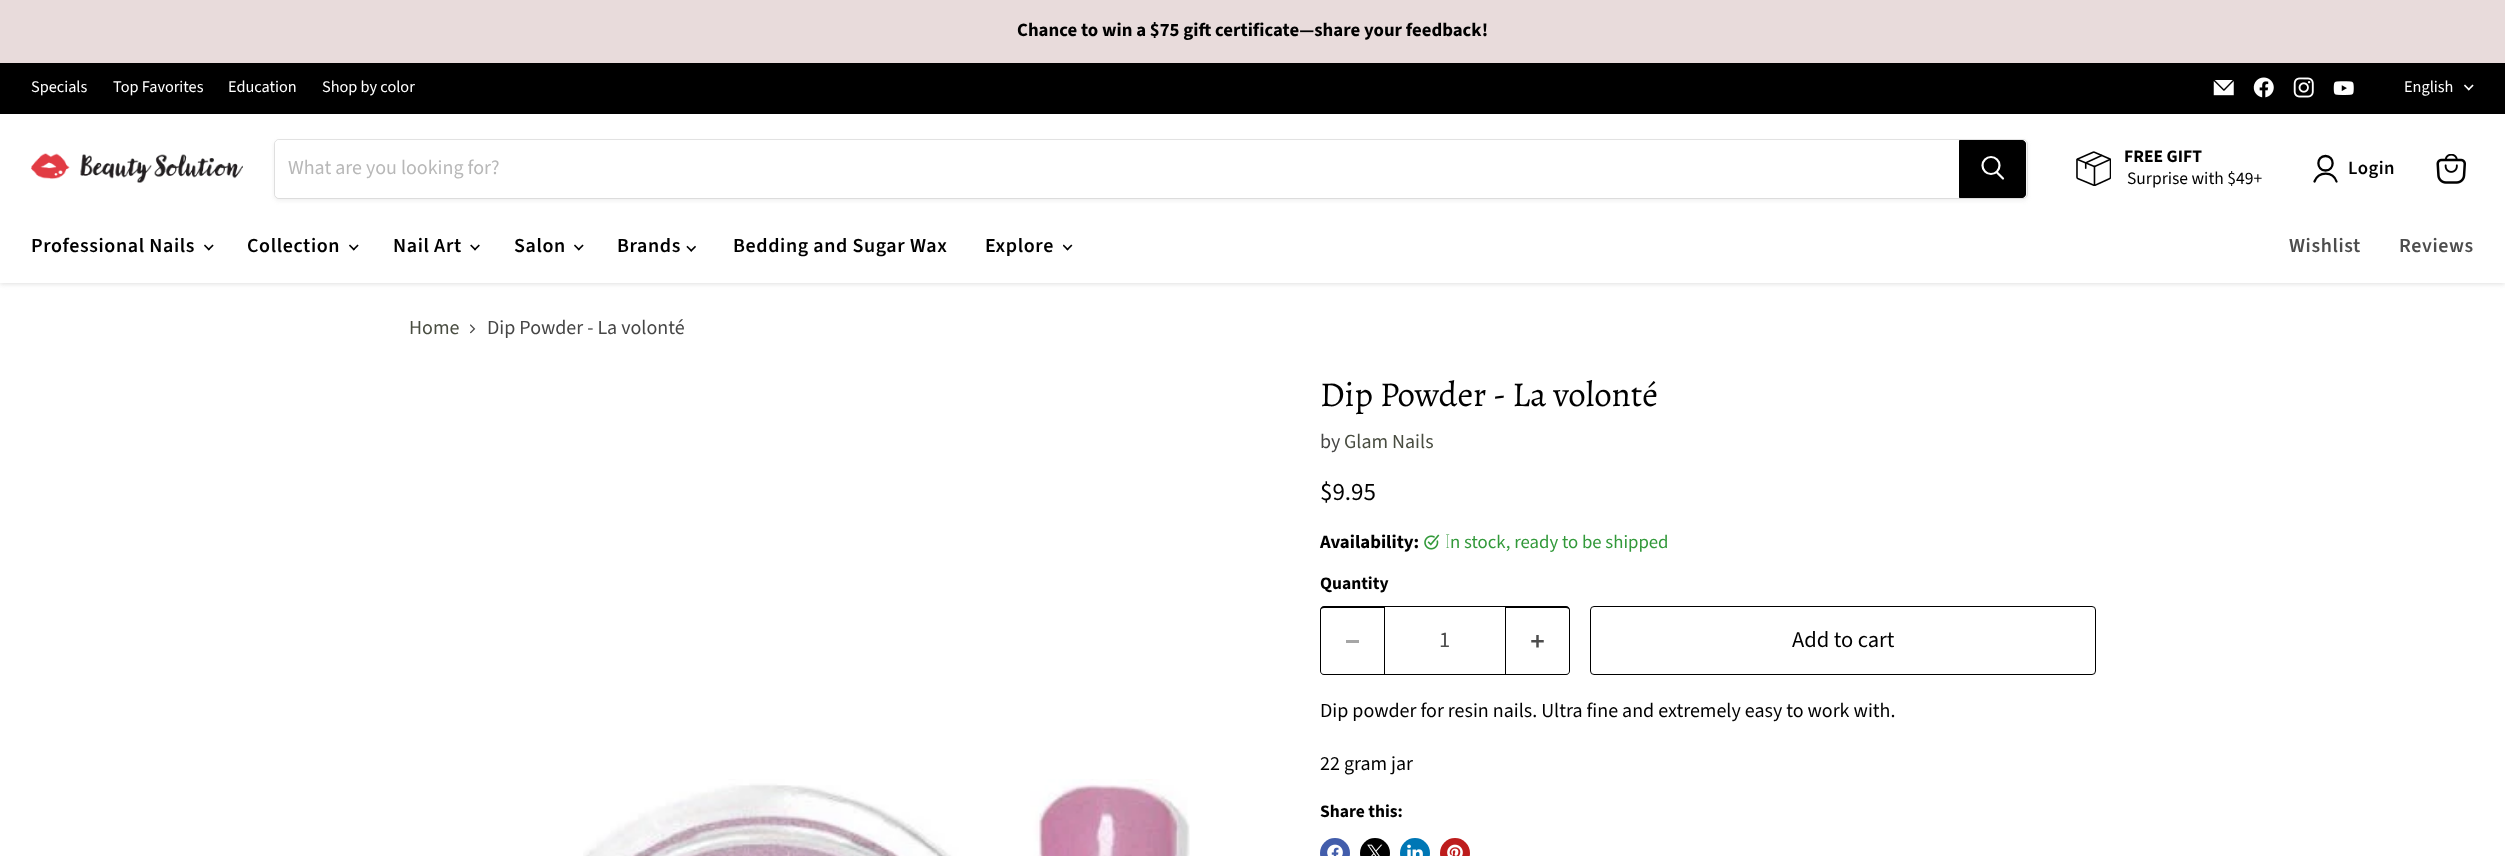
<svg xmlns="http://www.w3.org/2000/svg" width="2505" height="856">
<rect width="100%" height="100%" fill="#fff"/>
<rect width="2505" height="63" fill="#e8dbdb"/>
<text x="1017" y="36" style="font-family:Source Sans Pro;font-size:18.75px;font-weight:bold;fill:#000">Chance to win a $75 gift certificate—share your feedback!</text>
<rect y="116" width="2505" height="168" fill="#80808040" filter="blur(2.5px)"/>
<rect y="63" width="2505" height="51" fill="#000"/>
<text x="31" y="92" style="font-family:Source Sans Pro;font-size:16.25px;fill:#fff">Specials</text>
<text x="113" y="92" style="font-family:Source Sans Pro;font-size:16.25px;fill:#fff">Top Favorites</text>
<text x="228" y="92" style="font-family:Source Sans Pro;font-size:16.25px;fill:#fff">Education</text>
<text x="322" y="92" style="font-family:Source Sans Pro;font-size:16.25px;fill:#fff">Shop by color</text>
<image x="2213" y="80" width="21" height="16" href="media/1.png"/>
<image x="2253" y="77" width="21" height="21" href="media/2.png"/>
<image x="2293" y="77" width="21" height="21" href="media/3.png"/>
<image x="2333" y="81" width="21" height="14" href="media/4.png"/>
<text x="2404" y="92" style="font-family:Source Sans Pro;font-size:16.25px;fill:#fff">English</text>
<image x="2464" y="84" width="10" height="7" href="media/5.png"/>
<rect y="114" width="2505" height="169" fill="#fff"/>
<image x="31" y="153" width="212" height="30" href="media/6.png"/>
<rect x="274" y="141" width="1754" height="60" rx="5" fill="#8080801c" filter="blur(2px)"/>
<rect x="274.5" y="139.5" width="1753" height="59" rx="4.5" fill="none" stroke="#80808033"/>
<path d="M279 140h1680v58h-1680c-2 0-4-2-4-4v-50c0-2 2-4 4-4z" fill="#fff"/>
<text x="288" y="174" style="font-family:Source Sans Pro;font-size:20px;fill:#b8b8b8">What are you looking for?</text>
<path d="M1959.5 140.5h62.5c2 0 3.5 1.5 3.5 3.5v50c0 2-1.5 3.5-3.5 3.5h-62.5z" fill="#000" stroke="#000"/>
<path d="M2003 178.5l-6-6" fill="none" stroke="#fff" stroke-width="2.2" stroke-linecap="round"/>
<circle cx="1991" cy="165.5" r="8.5" fill="none" stroke="#fff" stroke-width="2.2"/>
<image x="2076" y="151" width="35" height="35" href="media/7.png"/>
<text x="2124" y="162" style="font-family:Source Sans Pro;font-size:17.5px;font-weight:bold;fill:#000">FREE GIFT</text>
<text x="2127" y="184" style="font-family:Source Sans Pro;font-size:17.5px;fill:#000">Surprise with $49+</text>
<path d="M2325.5 170.5c9.5 0 9.5-14.5 0-14.5c-9.5 0-9.5 14.5 0 14.5zm11 11c-3.5-10.5-18-10.5-22 0" fill="none" stroke="#000" stroke-width="2.3" stroke-linecap="round" stroke-linejoin="round"/>
<text x="2348" y="174" style="font-family:Source Sans Pro;font-size:18.75px;font-weight:600;letter-spacing:0.5px;fill:#000">Login</text>
<image x="2436" y="154" width="30" height="30" href="media/8.png"/>
<text x="31" y="252" style="font-family:Source Sans Pro;font-size:20px;font-weight:600;letter-spacing:0.6px;fill:#000">Professional Nails</text>
<image x="204" y="244" width="10" height="7" href="media/9.png"/>
<text x="247" y="252" style="font-family:Source Sans Pro;font-size:20px;font-weight:600;letter-spacing:0.6px;fill:#000">Collection</text>
<image x="349" y="244" width="10" height="7" href="media/9.png"/>
<text x="393" y="252" style="font-family:Source Sans Pro;font-size:20px;font-weight:600;letter-spacing:0.6px;fill:#000">Nail Art</text>
<image x="470" y="244" width="10" height="7" href="media/10.png"/>
<text x="514" y="252" style="font-family:Source Sans Pro;font-size:20px;font-weight:600;letter-spacing:0.6px;fill:#000">Salon</text>
<image x="574" y="244" width="10" height="7" href="media/9.png"/>
<text x="617" y="252" style="font-family:Source Sans Pro;font-size:20px;font-weight:600;letter-spacing:0.6px;fill:#000">Brands</text>
<image x="686" y="245" width="10" height="7" href="media/11.png"/>
<text x="733" y="252" style="font-family:Source Sans Pro;font-size:20px;font-weight:600;letter-spacing:0.6px;fill:#000">Bedding and Sugar Wax</text>
<text x="985" y="252" style="font-family:Source Sans Pro;font-size:20px;font-weight:600;letter-spacing:0.6px;fill:#000">Explore</text>
<image x="1063" y="244" width="10" height="7" href="media/12.png"/>
<text x="2289" y="252" style="font-family:Source Sans Pro;font-size:20px;font-weight:600;letter-spacing:0.6px;fill:#4d4d4d">Wishlist</text>
<text x="2399" y="252" style="font-family:Source Sans Pro;font-size:20px;font-weight:600;letter-spacing:0.6px;fill:#4d4d4d">Reviews</text>
<text x="409" y="334" style="font-family:Source Sans Pro;font-size:20px;fill:#494d41">Home</text>
<image x="470" y="324" width="6" height="10" href="media/13.png"/>
<text x="487" y="334" style="font-family:Source Sans Pro;font-size:20px;fill:#464646">Dip Powder - La volonté</text>
<image x="583" y="779" width="607" height="77" href="media/14.png"/>
<text x="1320" y="406" style="font-family:Alegreya;font-size:35px;fill:#000">Dip Powder - La volonté</text>
<text x="1320" y="448" style="font-family:Source Sans Pro;font-size:20px;fill:#464646">by</text>
<text x="1344" y="448" style="font-family:Source Sans Pro;font-size:20px;fill:#494d41">Glam Nails</text>
<text x="1320" y="500" style="font-family:Source Sans Pro;font-size:25px;fill:#000">$9.95</text>
<text x="1320" y="548" style="font-family:Source Sans Pro;font-size:18.75px;font-weight:bold;fill:#000">Availability:</text>
<image x="1424" y="534" width="16" height="16" href="media/15.png"/>
<text x="1445" y="548" style="font-family:Noto Sans;font-size:18.75px;font-weight:100;fill:#32993a">I</text>
<text x="1450" y="548" style="font-family:Source Sans Pro;font-size:18.75px;fill:#32993a">n stock, ready to be shipped</text>
<text x="1320" y="589" style="font-family:Source Sans Pro;font-size:17.5px;font-weight:bold;fill:#000">Quantity</text>
<path d="M1324 606h60v69h-60c-2 0-4-2-4-4v-61c0-2 2-4 4-4zm0 2h60v66h-60c-2 0-3-1-3-3v-61c0-1 1-2 3-2z" fill="#000" fill-rule="evenodd"/>
<rect x="1346" y="640" width="13" height="3" fill="#a6a6a6"/>
<rect x="1384.5" y="606.5" width="121" height="68" fill="none" stroke="#000"/>
<text x="1439" y="647" style="font-family:Source Sans Pro;font-size:22.5px;fill:#4d4d4d">1</text>
<path d="M1506 606h60c2 0 4 2 4 4v61c0 2-2 4-4 4h-60zm0 2h60c2 0 3 1 3 2v61c0 2-1 3-3 3h-60z" fill="#000" fill-rule="evenodd"/>
<image x="1531" y="635" width="13" height="13" href="media/16.png"/>
<rect x="1590.5" y="606.5" width="505" height="68" rx="3.5" fill="none" stroke="#000"/>
<text x="1792" y="647" style="font-family:Source Sans Pro;font-size:22.5px;fill:#000">Add to cart</text>
<text x="1320" y="717" style="font-family:Source Sans Pro;font-size:20px;fill:#000">Dip powder for resin nails. Ultra fine and extremely easy to work with.</text>
<text x="1320" y="770" style="font-family:Source Sans Pro;font-size:20px;fill:#000">22 gram jar</text>
<text x="1320" y="817" style="font-family:Source Sans Pro;font-size:17.5px;font-weight:bold;fill:#000">Share this:</text>
<circle cx="1335" cy="853" r="15" fill="#425dab"/>
<image x="1327" y="844" width="16" height="12" href="media/17.png"/>
<circle cx="1375" cy="853" r="15" fill="#000"/>
<image x="1367" y="844" width="16" height="12" href="media/18.png"/>
<circle cx="1415" cy="853" r="15" fill="#0077b5"/>
<image x="1407" y="844" width="16" height="12" href="media/19.png"/>
<circle cx="1455" cy="853" r="15" fill="#bd1c1c"/>
<image x="1447" y="844" width="16" height="12" href="media/20.png"/>
</svg>
